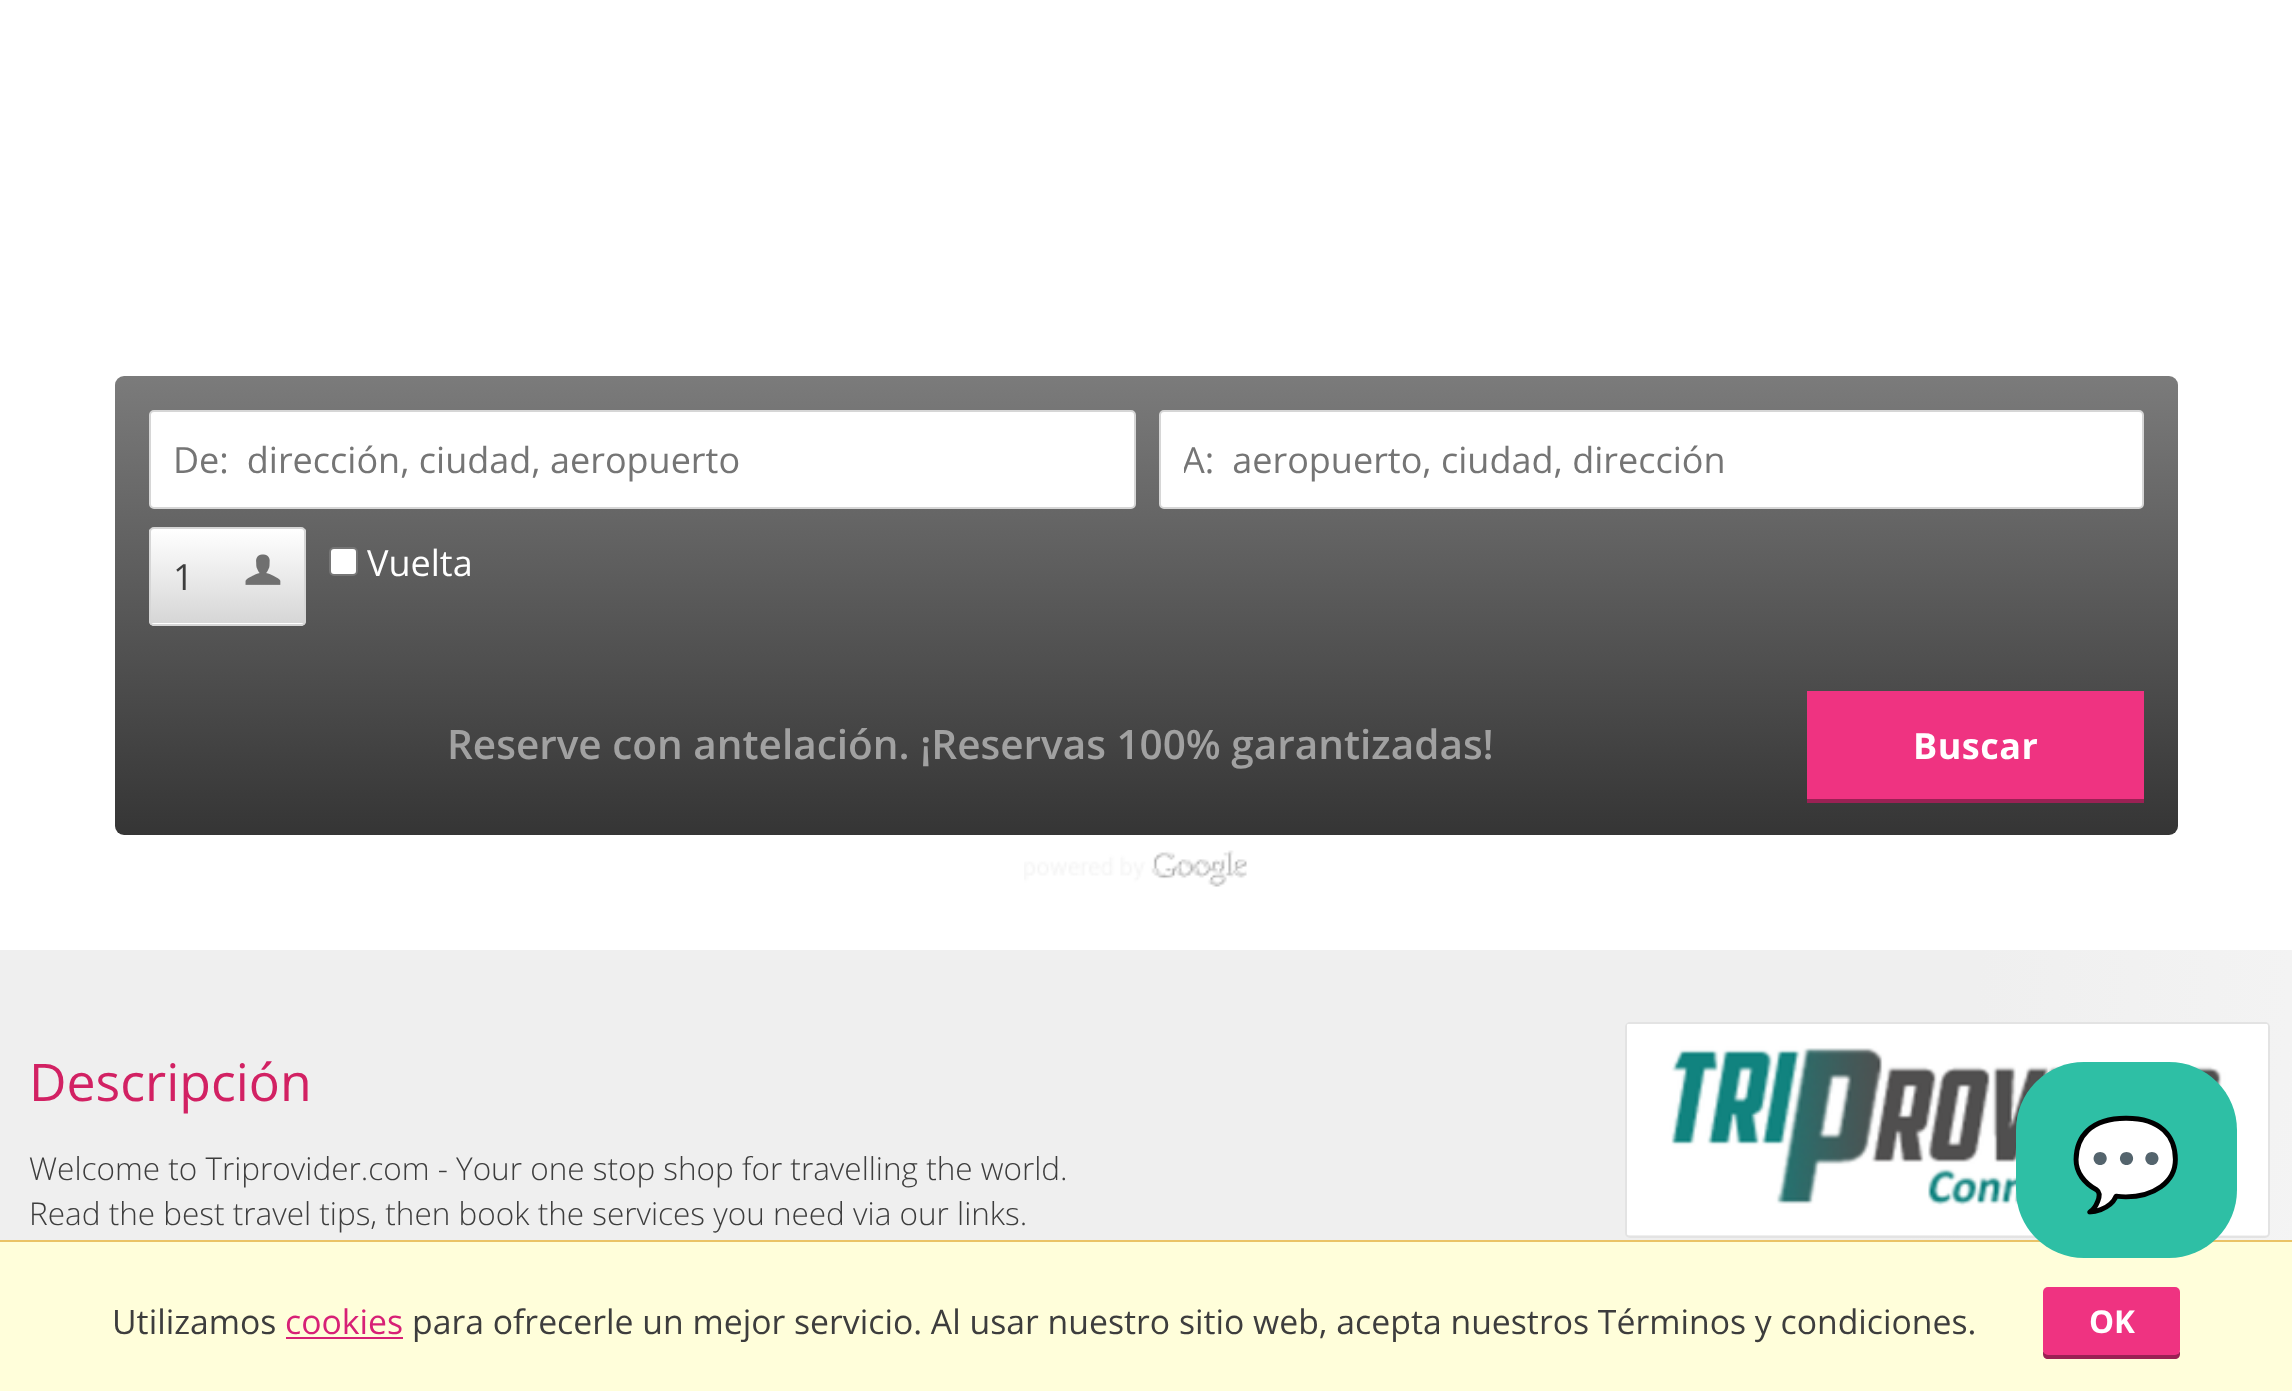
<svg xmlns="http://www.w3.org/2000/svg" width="2292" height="1391">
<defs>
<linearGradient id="g1" gradientUnits="userSpaceOnUse" x1="1146" y1="376" x2="1146" y2="835"><stop offset="0" stop-color="#7b7b7b"/><stop offset="1" stop-color="#353535"/></linearGradient>
<clipPath id="clip1"><rect x="1184" y="434" width="904" height="50"/></clipPath>
<clipPath id="clip2"><rect x="149" y="527" width="157" height="99" rx="5"/></clipPath>
<linearGradient id="g2" gradientUnits="userSpaceOnUse" x1="227" y1="529" x2="227" y2="623"><stop offset="0" stop-color="#fff"/><stop offset="1" stop-color="#d6d6d6"/></linearGradient>
<linearGradient id="g3" gradientUnits="userSpaceOnUse" x1="227" y1="623" x2="227" y2="718"><stop offset="0" stop-color="#fff"/><stop offset="1" stop-color="#d6d6d6"/></linearGradient>
<radialGradient id="g4" gradientUnits="userSpaceOnUse" cx="0" cy="0" r="1" gradientTransform="matrix(3242 0 0 1734 0 950)"><stop offset="0.61" stop-color="#efefef"/><stop offset="1" stop-color="#fff"/></radialGradient>
</defs>
<rect width="100%" height="100%" fill="#fff"/>
<rect x="115" y="376" width="2063" height="459" rx="9" fill="url(#g1)"/>
<rect x="150" y="411" width="985" height="97" rx="4" fill="#fff" stroke="#d6d6d6" stroke-width="2"/>
<text x="173" y="473" style="font-family:Open Sans;font-size:36px;fill:#757575">De: dirección, ciudad, aeropuerto</text>
<rect x="1160" y="411" width="983" height="97" rx="4" fill="#fff" stroke="#d6d6d6" stroke-width="2"/>
<g clip-path="url(#clip1)">
<text x="1182" y="473" style="font-family:Open Sans;font-size:36px;fill:#757575">A: aeropuerto, ciudad, dirección</text>
</g>
<g clip-path="url(#clip2)">
<rect x="149" y="529" width="157" height="94" fill="url(#g2)"/>
<rect x="149" y="623" width="157" height="3" fill="url(#g3)"/>
</g>
<rect x="150" y="528" width="155" height="97" rx="4" fill="none" stroke="#d6d6d6" stroke-width="2"/>
<text x="173" y="590" style="font-family:Open Sans;font-size:36px;fill:#3d3d3d">1</text>
<image x="245" y="554" width="36" height="31" href="media/1.png"/>
<rect x="330" y="548" width="27" height="27" rx="4" fill="#fff" stroke="#767676" stroke-width="2"/>
<text x="367" y="576" style="font-family:Open Sans;font-size:36px;fill:#fff">Vuelta</text>
<text x="447" y="759" style="font-family:Open Sans;font-size:40.5px;font-weight:600;fill:#a1a1a1">Reserve con antelación. ¡Reservas 100% garantizadas!</text>
<rect x="1807" y="799" width="337" height="4" fill="#9b2154"/>
<rect x="1807" y="691" width="337" height="108" fill="#ef3381"/>
<text x="1913" y="759" style="font-family:Open Sans;font-size:36px;font-weight:bold;letter-spacing:0.5px;fill:#fff">Buscar</text>
<image x="1024" y="850" width="223" height="37" href="media/2.png"/>
<rect y="950" width="2292" height="290" fill="url(#g4)"/>
<text x="29" y="1101" style="font-family:Open Sans;font-size:51.75px;fill:#d22163">Descripción</text>
<text x="29" y="1180" style="font-family:Open Sans;font-size:31.5px;font-weight:300;fill:#3d3d3d">Welcome to Triprovider.com - Your one stop shop for travelling the world.</text>
<text x="29" y="1225" style="font-family:Open Sans;font-size:31.5px;font-weight:300;fill:#3d3d3d">Read the best travel tips, then book the services you need via our links.</text>
<rect x="1626" y="1023" width="643" height="214" rx="4" fill="none" stroke="#e3e3e3" stroke-width="2"/>
<image x="1627" y="1024" width="641" height="211" href="media/3.png"/>
<rect y="1242" width="2292" height="149" fill="#fffeda"/>
<rect y="1240" width="2292" height="2" fill="#eac367"/>
<text x="112" y="1334" style="font-family:Open Sans;font-size:33.75px;fill:#3d3d3d">Utilizamos</text>
<text x="285" y="1334" style="font-family:Open Sans;font-size:33.75px;fill:#d72076">cookies</text>
<rect x="286" y="1337" width="117" height="2" fill="#d72076"/>
<text x="412" y="1334" style="font-family:Open Sans;font-size:33.75px;fill:#3d3d3d">para ofrecerle un mejor servicio. Al usar nuestro sitio web, acepta nuestros Términos y condiciones.</text>
<path d="M2043 1350v4c0 3 2 5 5 5h127c3 0 5-2 5-5v-3c-1 2-2 3-4 3h-128c-3 0-5-2-5-4z" fill="#9b2154"/>
<rect x="2043" y="1287" width="137" height="68" rx="5" fill="#ef3381"/>
<text x="2089" y="1333" style="font-family:Open Sans;font-size:31.5px;font-weight:bold;fill:#fff">OK</text>
<rect x="2016" y="1062" width="221" height="196" rx="68" fill="#2ebfa5"/>
<text x="2070" y="1195" style="font-family:Noto Color Emoji;font-size:90px;fill:#fff">💬</text>
</svg>
